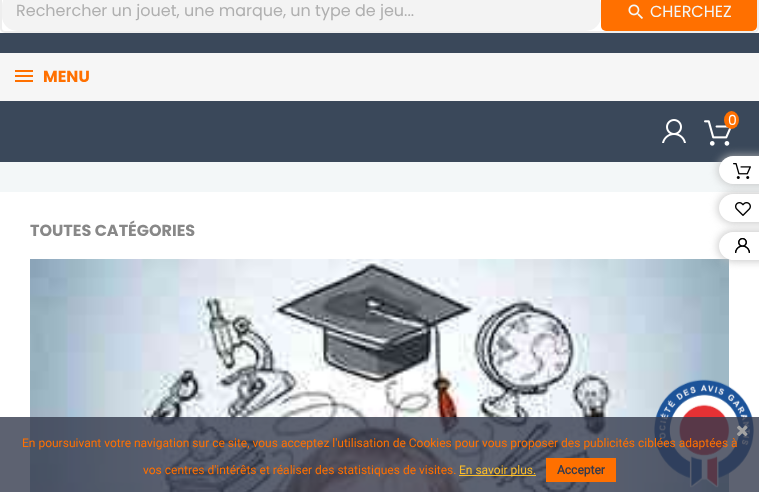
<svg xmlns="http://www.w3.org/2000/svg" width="759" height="492">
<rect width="100%" height="100%" fill="#f3f7f8"/>
<rect width="759" height="33" fill="#fff"/>
<rect x="1" y="-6" width="757" height="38" rx="4" fill="none" stroke="#eee" stroke-width="2"/>
<rect x="2" y="-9" width="599" height="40" rx="15" fill="#f3f3f3"/>
<text x="16" y="16" style="font-family:Poppins;font-size:16px;fill:#afafaf">Rechercher un jouet, une marque, un type de jeu...</text>
<rect x="601" y="-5" width="156" height="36" rx="5" fill="#ff7000"/>
<image x="628" y="4" width="15" height="15" href="media/1.png"/>
<text x="650" y="17" style="font-family:Poppins;font-size:16px;fill:#f3f7f8">CHERCHEZ</text>
<rect y="33" width="759" height="129" fill="#3a485a"/>
<rect y="53" width="759" height="48" fill="#f6f6f6"/>
<rect x="15" y="70" width="18" height="2" fill="#ff7000"/>
<rect x="15" y="75" width="18" height="2" fill="#ff7000"/>
<rect x="15" y="80" width="18" height="2" fill="#ff7000"/>
<text x="43" y="82" style="font-family:Poppins;font-size:16px;font-weight:bold;fill:#ff7000">MENU</text>
<image x="662" y="119" width="24" height="24" href="media/2.png"/>
<image x="704" y="120" width="28" height="26" href="media/3.png"/>
<ellipse cx="731.5" cy="120" rx="7.5" ry="9" fill="#ff7000"/>
<text x="728" y="125" style="font-family:Poppins;font-size:14px;fill:#fff">0</text>
<rect y="192" width="759" height="300" fill="#fff"/>
<rect x="718" y="155" width="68" height="30" rx="15" fill="#b8b8b8cc" filter="blur(4px)"/>
<path d="M733 156h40v28h-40c-7.5 0-14-6.5-14-14c0-7.5 6.5-14 14-14z" fill="#fff"/>
<image x="733" y="163" width="18" height="16" href="media/4.png"/>
<rect x="718" y="193" width="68" height="30" rx="15" fill="#b8b8b8cc" filter="blur(4px)"/>
<path d="M733 194h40v28h-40c-7.5 0-14-6.5-14-14c0-7.5 6.5-14 14-14z" fill="#fff"/>
<image x="735" y="202" width="16" height="14" href="media/5.png"/>
<image x="30" y="259" width="699" height="233" href="media/7.png"/>
<rect x="718" y="231" width="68" height="30" rx="15" fill="#b8b8b8cc" filter="blur(4px)"/>
<path d="M733 232h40v28h-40c-7.5 0-14-6.5-14-14c0-7.5 6.5-14 14-14z" fill="#fff"/>
<image x="735" y="238" width="15" height="15" href="media/6.png"/>
<text x="30" y="236" style="font-family:Poppins;font-size:16px;font-weight:bold;fill:#888">TOUTES CATÉGORIES</text>
<image x="654" y="379" width="100" height="109" href="media/8.png"/>
<rect y="417" width="759" height="75" fill="#353b4dcc"/>
<image x="737" y="425" width="11" height="12" href="media/9.png"/>
<text x="22" y="447" style="font-family:Roboto;font-size:12px;fill:#ff7000">En poursuivant votre navigation sur ce site, vous acceptez l'utilisation de Cookies pour vous proposer des publicités ciblées adaptées à</text>
<text x="143" y="474" style="font-family:Roboto;font-size:12px;fill:#ff7000">vos centres d'intérêts et réaliser des statistiques de visites.</text>
<rect x="459" y="475" width="77" height="1" fill="#fbbd2a"/>
<text x="459" y="474" style="font-family:Roboto;font-size:12px;fill:#fbbd2a">En savoir plus.</text>
<rect x="546" y="458" width="70" height="24" fill="#ff7000"/>
<text x="557" y="474" style="font-family:Roboto;font-size:12px;font-weight:bold;fill:#353b4d">Accepter</text>
</svg>
